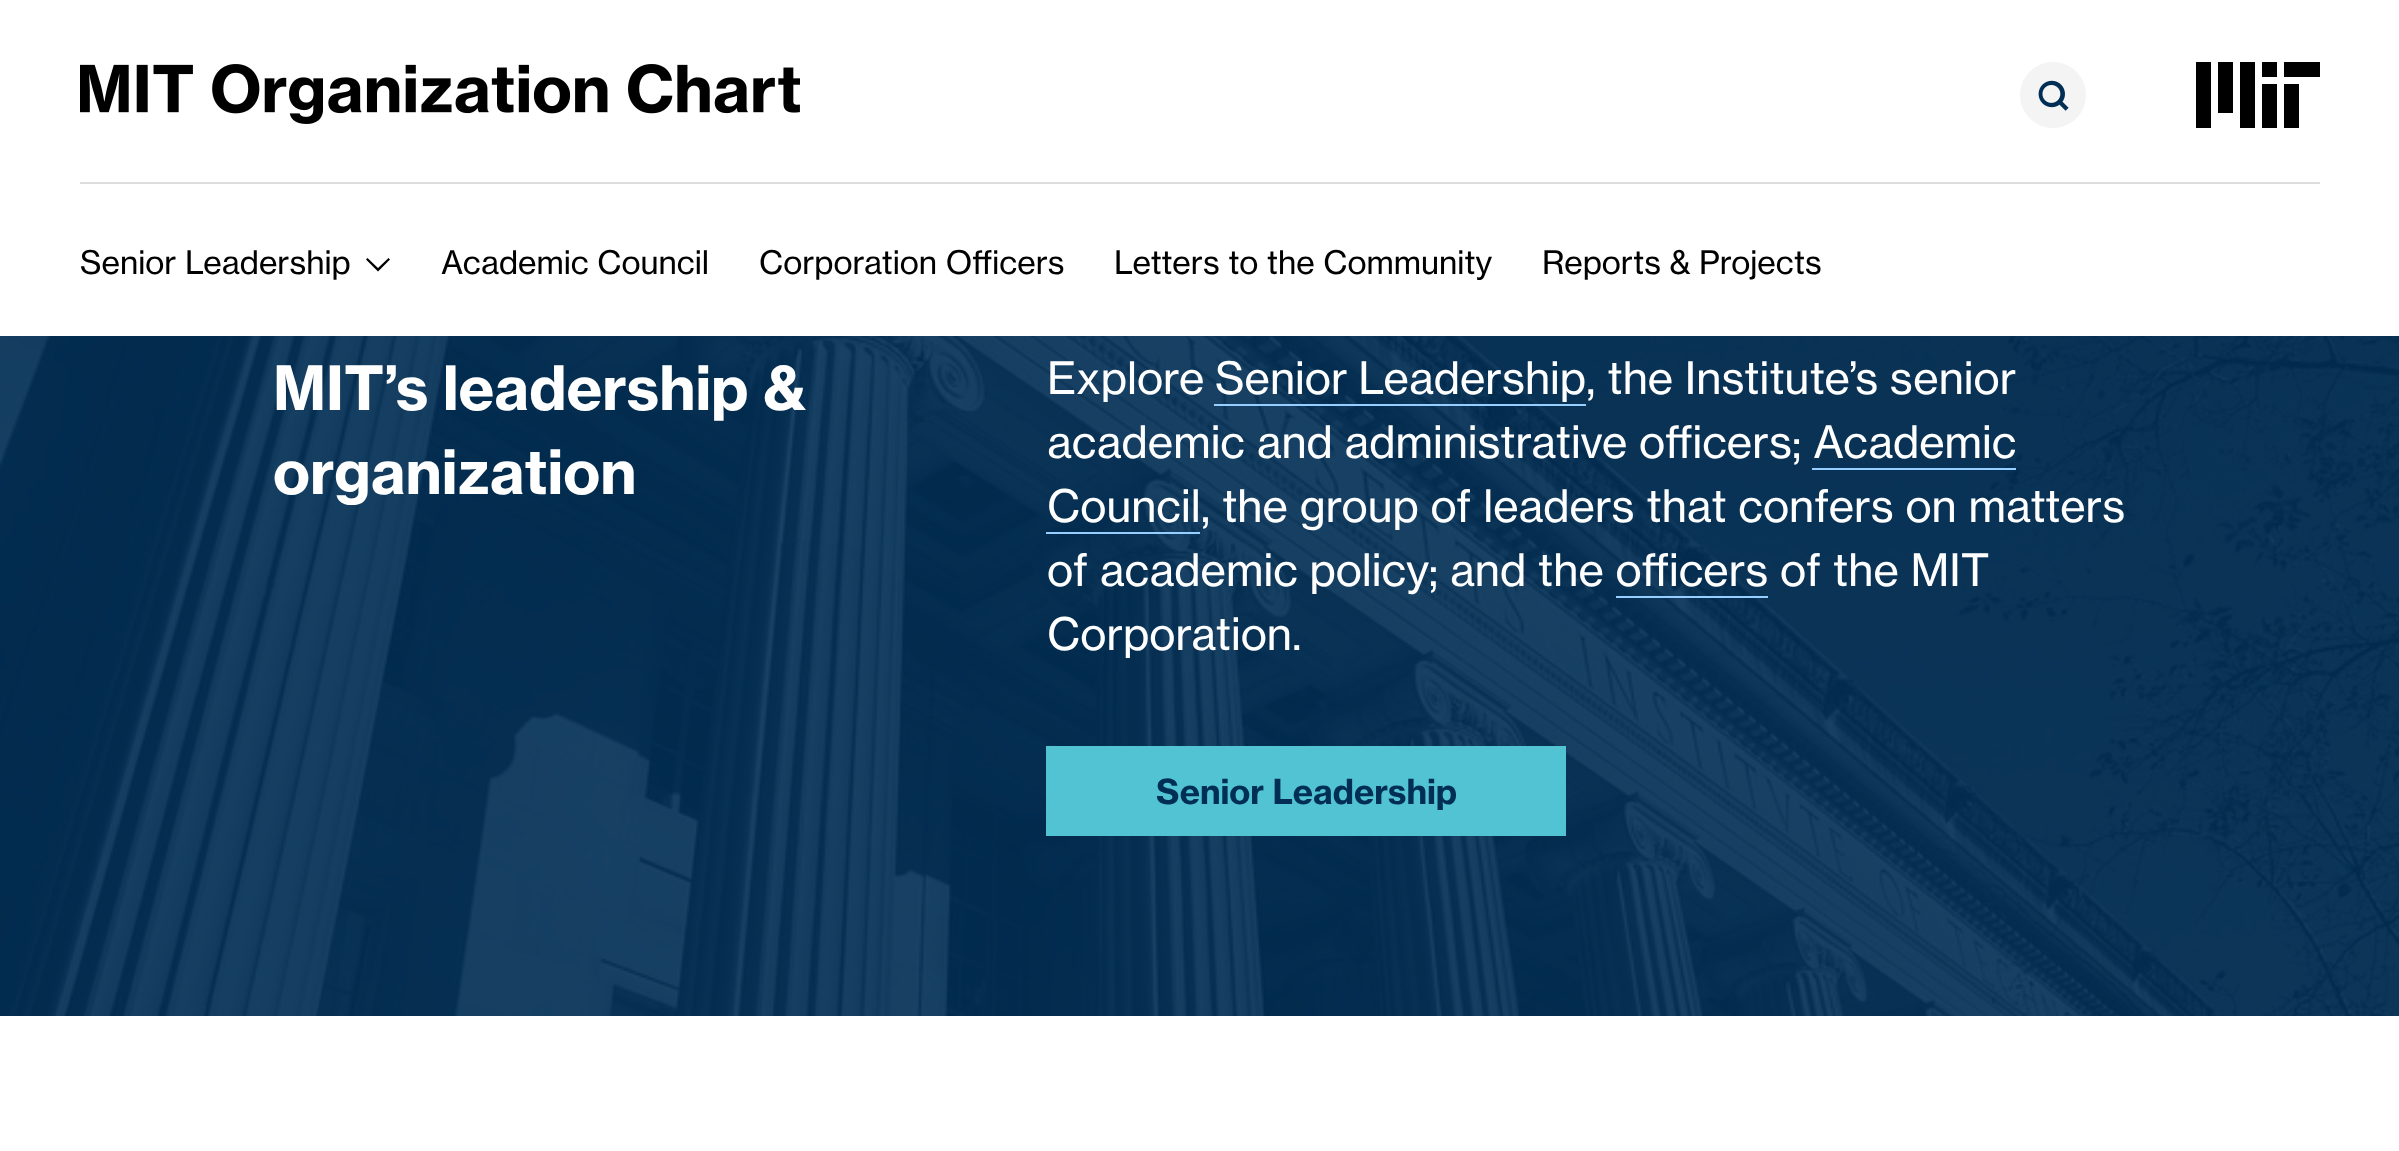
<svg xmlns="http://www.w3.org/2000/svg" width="2399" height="1151">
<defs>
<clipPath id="clip1"><rect x="2196" y="62" width="124" height="66"/></clipPath>
</defs>
<rect width="100%" height="100%" fill="#fff"/>
<image x="80" y="64" width="720" height="60" href="media/1.png"/>
<image x="2020" y="62" width="66" height="66" href="media/2.png"/>
<g clip-path="url(#clip1)">
<path d="M2262 128h15v-44h-15zm22-51h37v-15h-37zm-22-15h15v15h-15zm-22 66h15v-66h-15zm-22-15h15v-51h-15zm-22 15h15v-66h-15zm88 0h15v-44h-15z" fill="#000"/>
</g>
<rect x="80" y="182" width="2240" height="2" fill="#ddd"/>
<text x="80" y="274" style="font-family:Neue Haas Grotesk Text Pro;font-size:32px;fill:#000">Senior Leadership</text>
<path d="M378 271.5l-12-12l1.5-1.5l10.5 10l10.5-10l1.5 1.5z" fill="#000"/>
<text x="441" y="274" style="font-family:Neue Haas Grotesk Text Pro;font-size:32px;fill:#000">Academic Council</text>
<text x="759" y="274" style="font-family:Neue Haas Grotesk Text Pro;font-size:32px;fill:#000">Corporation Officers</text>
<text x="1114" y="274" style="font-family:Neue Haas Grotesk Text Pro;font-size:32px;fill:#000">Letters to the Community</text>
<text x="1542" y="274" style="font-family:Neue Haas Grotesk Text Pro;font-size:32px;fill:#000">Reports &amp; Projects</text>
<image x="0" y="336" width="2399" height="680" href="media/3.png"/>
<text x="273" y="410" style="font-family:Neue Haas Grotesk Text Pro;font-size:60px;font-weight:bold;fill:#fff">MIT’s leadership &amp;</text>
<text x="273" y="494" style="font-family:Neue Haas Grotesk Text Pro;font-size:60px;font-weight:bold;fill:#fff">organization</text>
<text x="1047" y="394" style="font-family:Neue Haas Grotesk Text Pro;font-size:44px;fill:#fff">Explore</text>
<text x="1215" y="394" word-spacing="-1" style="font-family:Neue Haas Grotesk Text Pro;font-size:44px;fill:#fff">Senior Leadership</text>
<rect x="1214" y="404" width="372" height="2" fill="#95ceff"/>
<text x="1586" y="394" style="font-family:Neue Haas Grotesk Text Pro;font-size:44px;fill:#fff">, the Institute’s senior</text>
<text x="1047" y="458" style="font-family:Neue Haas Grotesk Text Pro;font-size:44px;fill:#fff">academic and administrative officers; Academic</text>
<text x="1047" y="522" style="font-family:Neue Haas Grotesk Text Pro;font-size:44px;fill:#fff">Council, the group of leaders that confers on matters</text>
<rect x="1812" y="468" width="204" height="2" fill="#95ceff"/>
<rect x="1046" y="532" width="154" height="2" fill="#95ceff"/>
<text x="1047" y="586" style="font-family:Neue Haas Grotesk Text Pro;font-size:44px;fill:#fff">of academic policy; and the officers of the MIT</text>
<rect x="1616" y="596" width="152" height="2" fill="#95ceff"/>
<text x="1047" y="650" style="font-family:Neue Haas Grotesk Text Pro;font-size:44px;fill:#fff">Corporation.</text>
<rect x="1046" y="746" width="520" height="90" fill="#51c3d3"/>
<text x="1156" y="804" style="font-family:Neue Haas Grotesk Text Pro;font-size:34px;font-weight:bold;fill:#002e55">Senior Leadership</text>
</svg>
